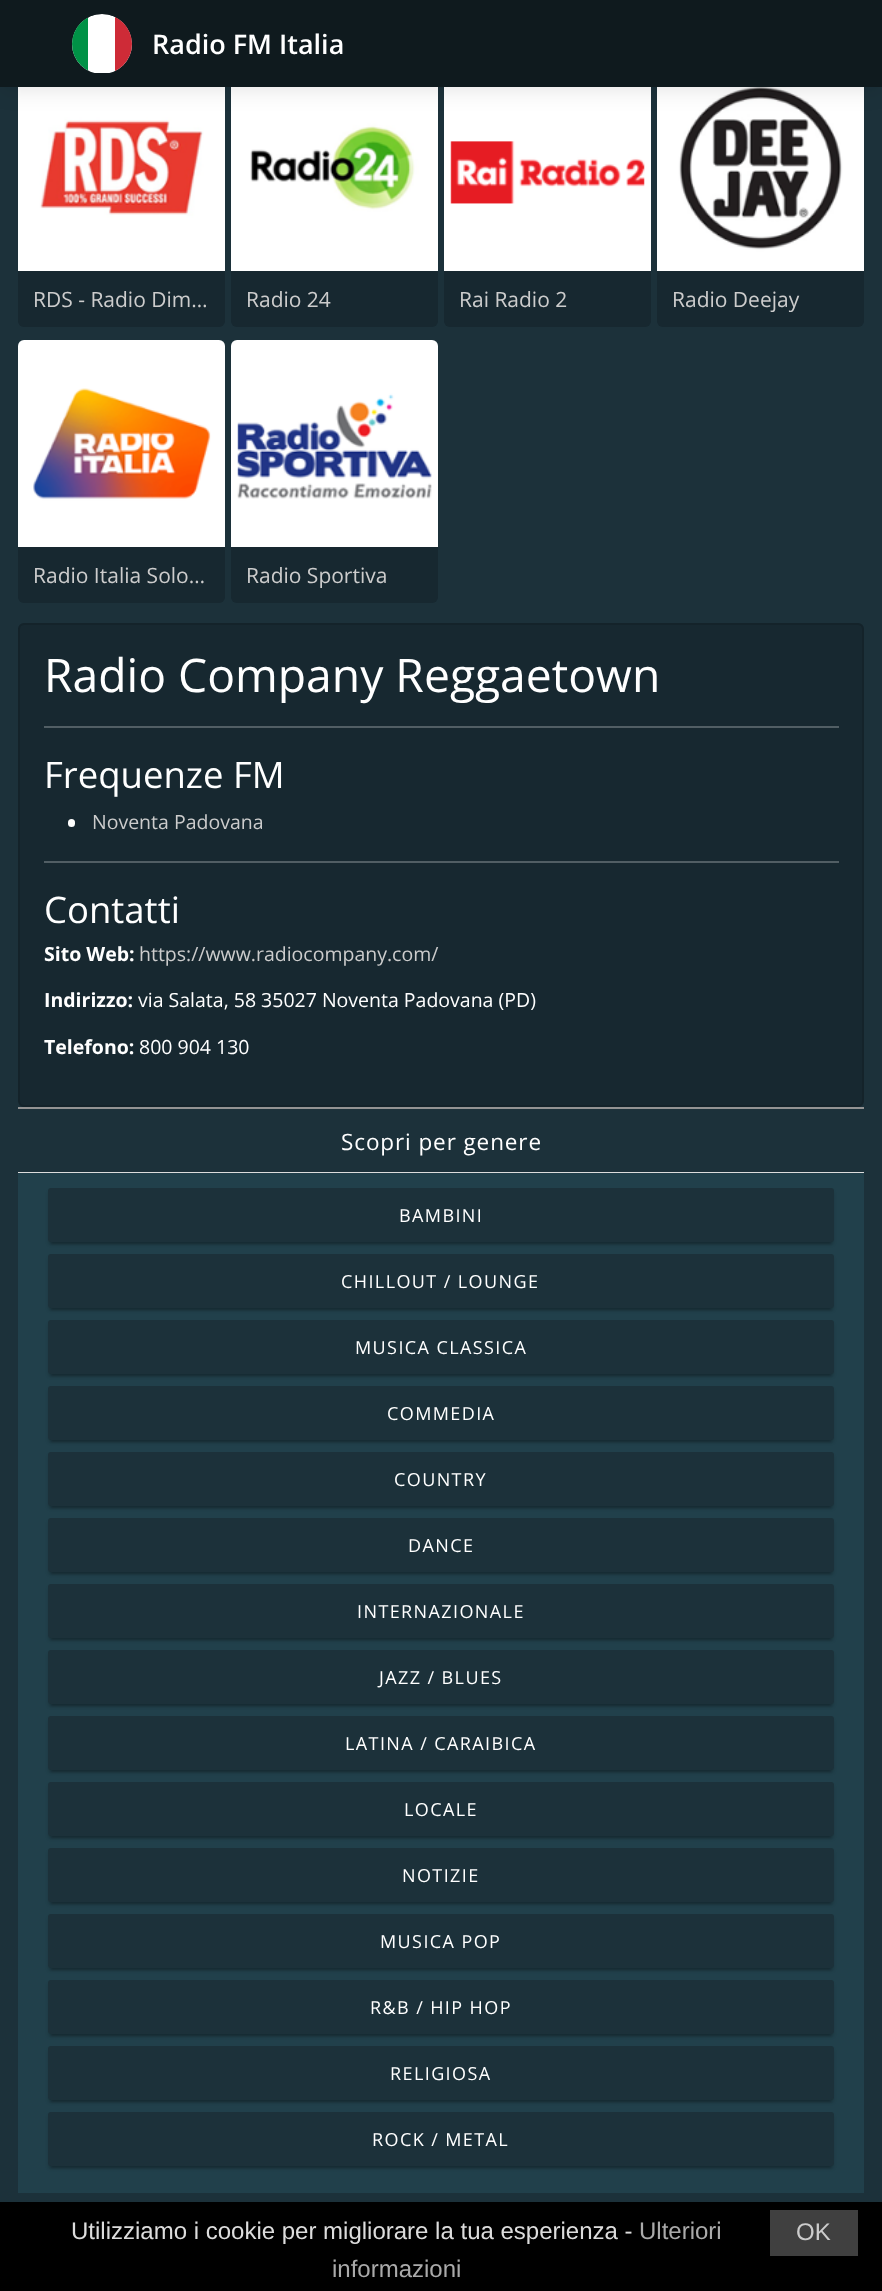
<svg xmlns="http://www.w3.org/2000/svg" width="882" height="2291">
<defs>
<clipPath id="clip1"><rect x="72" y="14" width="60" height="60" rx="30"/></clipPath>
</defs>
<rect width="100%" height="100%" fill="#1c313a"/>
<rect x="18" y="65" width="207" height="262" rx="6" fill="#172830"/>
<image x="18" y="87" width="207" height="184" href="media/1.png"/>
<rect x="231" y="65" width="207" height="262" rx="6" fill="#172830"/>
<image x="231" y="87" width="207" height="184" href="media/2.png"/>
<rect x="444" y="65" width="207" height="262" rx="6" fill="#172830"/>
<image x="444" y="87" width="207" height="184" href="media/3.png"/>
<rect x="657" y="65" width="207" height="262" rx="6" fill="#172830"/>
<image x="657" y="87" width="207" height="184" href="media/4.png"/>
<rect y="3" width="882" height="87" fill="#0000001a" filter="blur(11px)"/>
<rect width="882" height="87" fill="#0f1a1e"/>
<g clip-path="url(#clip1)">
<path d="M102 14c16.5 0 30 13.5 30 30v29h-60v-29c0-16.5 13.5-30 30-30z" fill="#fff"/>
<rect x="72" y="17" width="16" height="54" fill="#009246"/>
<rect x="115" y="17" width="17" height="54" fill="#ce2b37"/>
</g>
<text x="152" y="54" style="font-family:Open Sans;font-size:27px;font-weight:600;fill:#fff">Radio FM Italia</text>
<text x="33" y="307" style="font-family:Open Sans;font-size:21px;fill:#ccc">RDS - Radio Dim…</text>
<text x="246" y="307" style="font-family:Open Sans;font-size:21px;fill:#ccc">Radio 24</text>
<text x="459" y="307" style="font-family:Open Sans;font-size:21px;fill:#ccc">Rai Radio 2</text>
<text x="672" y="307" style="font-family:Open Sans;font-size:21px;fill:#ccc">Radio Deejay</text>
<rect x="18" y="341" width="207" height="262" rx="6" fill="#172830"/>
<image x="18" y="340" width="207" height="207" href="media/5.png"/>
<text x="33" y="583" style="font-family:Open Sans;font-size:21px;fill:#ccc">Radio Italia Solo…</text>
<rect x="231" y="341" width="207" height="262" rx="6" fill="#172830"/>
<image x="231" y="340" width="207" height="207" href="media/6.png"/>
<text x="246" y="583" style="font-family:Open Sans;font-size:21px;fill:#ccc">Radio Sportiva</text>
<rect x="19" y="624" width="844" height="482" rx="5" fill="#172830" stroke="#14232a" stroke-width="2"/>
<text x="44" y="692" style="font-family:Open Sans;font-size:46.25px;fill:#fff">Radio Company Reggaetown</text>
<rect x="44" y="726" width="795" height="2" fill="#515e64"/>
<text x="44" y="788" style="font-family:Open Sans;font-size:36.5px;fill:#fff">Frequenze FM</text>
<rect x="68" y="819" width="7" height="8" rx="3.5" fill="#fff"/>
<text x="92" y="829" style="font-family:Open Sans;font-size:19.5px;fill:#ccc">Noventa Padovana</text>
<rect x="44" y="861" width="795" height="2" fill="#515e64"/>
<text x="44" y="923" style="font-family:Open Sans;font-size:36.5px;fill:#fff">Contatti</text>
<text x="44" y="961" style="font-family:Open Sans;font-size:19.5px;font-weight:bold;fill:#fff">Sito Web:</text>
<text x="139" y="961" style="font-family:Open Sans;font-size:19.5px;fill:#ccc">https://www.radiocompany.com/</text>
<text x="44" y="1007" style="font-family:Open Sans;font-size:19.5px;font-weight:bold;fill:#fff">Indirizzo:</text>
<text x="138" y="1007" style="font-family:Open Sans;font-size:19.5px;fill:#fff">via Salata, 58 35027 Noventa Padovana (PD)</text>
<text x="44" y="1054" style="font-family:Open Sans;font-size:19.5px;font-weight:bold;fill:#fff">Telefono:</text>
<text x="139" y="1054" style="font-family:Open Sans;font-size:19.5px;fill:#fff">800 904 130</text>
<rect x="18" y="1107" width="846" height="2" fill="#939393"/>
<rect x="18" y="1172" width="846" height="1" fill="#ddd"/>
<text x="341" y="1150" style="font-family:Open Sans;font-size:22.5px;letter-spacing:0.9px;fill:#fff">Scopri per genere</text>
<rect x="18" y="1173" width="846" height="1020" fill="#21404b"/>
<rect x="48" y="1191" width="786" height="54" rx="3" fill="#00000024" filter="blur(1.5px)"/>
<rect x="51" y="1196" width="780" height="48" fill="#00000033" filter="blur(1px)"/>
<rect x="48" y="1188" width="786" height="54" rx="3" fill="#1c313a"/>
<text x="399" y="1222" style="font-family:Open Sans;font-size:18px;letter-spacing:1.4px;fill:#fff">BAMBINI</text>
<rect x="48" y="1257" width="786" height="54" rx="3" fill="#00000024" filter="blur(1.5px)"/>
<rect x="51" y="1262" width="780" height="48" fill="#00000033" filter="blur(1px)"/>
<rect x="48" y="1254" width="786" height="54" rx="3" fill="#1c313a"/>
<text x="341" y="1288" style="font-family:Open Sans;font-size:18px;letter-spacing:1.4px;fill:#fff">CHILLOUT / LOUNGE</text>
<rect x="48" y="1323" width="786" height="54" rx="3" fill="#00000024" filter="blur(1.5px)"/>
<rect x="51" y="1328" width="780" height="48" fill="#00000033" filter="blur(1px)"/>
<rect x="48" y="1320" width="786" height="54" rx="3" fill="#1c313a"/>
<text x="355" y="1354" style="font-family:Open Sans;font-size:18px;letter-spacing:1.4px;fill:#fff">MUSICA CLASSICA</text>
<rect x="48" y="1389" width="786" height="54" rx="3" fill="#00000024" filter="blur(1.5px)"/>
<rect x="51" y="1394" width="780" height="48" fill="#00000033" filter="blur(1px)"/>
<rect x="48" y="1386" width="786" height="54" rx="3" fill="#1c313a"/>
<text x="387" y="1420" style="font-family:Open Sans;font-size:18px;letter-spacing:1.4px;fill:#fff">COMMEDIA</text>
<rect x="48" y="1455" width="786" height="54" rx="3" fill="#00000024" filter="blur(1.5px)"/>
<rect x="51" y="1460" width="780" height="48" fill="#00000033" filter="blur(1px)"/>
<rect x="48" y="1452" width="786" height="54" rx="3" fill="#1c313a"/>
<text x="394" y="1486" style="font-family:Open Sans;font-size:18px;letter-spacing:1.4px;fill:#fff">COUNTRY</text>
<rect x="48" y="1521" width="786" height="54" rx="3" fill="#00000024" filter="blur(1.5px)"/>
<rect x="51" y="1526" width="780" height="48" fill="#00000033" filter="blur(1px)"/>
<rect x="48" y="1518" width="786" height="54" rx="3" fill="#1c313a"/>
<text x="408" y="1552" style="font-family:Open Sans;font-size:18px;letter-spacing:1.4px;fill:#fff">DANCE</text>
<rect x="48" y="1587" width="786" height="54" rx="3" fill="#00000024" filter="blur(1.5px)"/>
<rect x="51" y="1592" width="780" height="48" fill="#00000033" filter="blur(1px)"/>
<rect x="48" y="1584" width="786" height="54" rx="3" fill="#1c313a"/>
<text x="357" y="1618" style="font-family:Open Sans;font-size:18px;letter-spacing:1.4px;fill:#fff">INTERNAZIONALE</text>
<rect x="48" y="1653" width="786" height="54" rx="3" fill="#00000024" filter="blur(1.5px)"/>
<rect x="51" y="1658" width="780" height="48" fill="#00000033" filter="blur(1px)"/>
<rect x="48" y="1650" width="786" height="54" rx="3" fill="#1c313a"/>
<text x="379" y="1684" style="font-family:Open Sans;font-size:18px;letter-spacing:1.4px;fill:#fff">JAZZ / BLUES</text>
<rect x="48" y="1719" width="786" height="54" rx="3" fill="#00000024" filter="blur(1.5px)"/>
<rect x="51" y="1724" width="780" height="48" fill="#00000033" filter="blur(1px)"/>
<rect x="48" y="1716" width="786" height="54" rx="3" fill="#1c313a"/>
<text x="345" y="1750" style="font-family:Open Sans;font-size:18px;letter-spacing:1.4px;fill:#fff">LATINA / CARAIBICA</text>
<rect x="48" y="1785" width="786" height="54" rx="3" fill="#00000024" filter="blur(1.5px)"/>
<rect x="51" y="1790" width="780" height="48" fill="#00000033" filter="blur(1px)"/>
<rect x="48" y="1782" width="786" height="54" rx="3" fill="#1c313a"/>
<text x="404" y="1816" style="font-family:Open Sans;font-size:18px;letter-spacing:1.4px;fill:#fff">LOCALE</text>
<rect x="48" y="1851" width="786" height="54" rx="3" fill="#00000024" filter="blur(1.5px)"/>
<rect x="51" y="1856" width="780" height="48" fill="#00000033" filter="blur(1px)"/>
<rect x="48" y="1848" width="786" height="54" rx="3" fill="#1c313a"/>
<text x="402" y="1882" style="font-family:Open Sans;font-size:18px;letter-spacing:1.4px;fill:#fff">NOTIZIE</text>
<rect x="48" y="1917" width="786" height="54" rx="3" fill="#00000024" filter="blur(1.5px)"/>
<rect x="51" y="1922" width="780" height="48" fill="#00000033" filter="blur(1px)"/>
<rect x="48" y="1914" width="786" height="54" rx="3" fill="#1c313a"/>
<text x="380" y="1948" style="font-family:Open Sans;font-size:18px;letter-spacing:1.4px;fill:#fff">MUSICA POP</text>
<rect x="48" y="1983" width="786" height="54" rx="3" fill="#00000024" filter="blur(1.5px)"/>
<rect x="51" y="1988" width="780" height="48" fill="#00000033" filter="blur(1px)"/>
<rect x="48" y="1980" width="786" height="54" rx="3" fill="#1c313a"/>
<text x="370" y="2014" style="font-family:Open Sans;font-size:18px;letter-spacing:1.4px;fill:#fff">R&amp;B / HIP HOP</text>
<rect x="48" y="2049" width="786" height="54" rx="3" fill="#00000024" filter="blur(1.5px)"/>
<rect x="51" y="2054" width="780" height="48" fill="#00000033" filter="blur(1px)"/>
<rect x="48" y="2046" width="786" height="54" rx="3" fill="#1c313a"/>
<text x="390" y="2080" style="font-family:Open Sans;font-size:18px;letter-spacing:1.4px;fill:#fff">RELIGIOSA</text>
<rect x="48" y="2115" width="786" height="54" rx="3" fill="#00000024" filter="blur(1.5px)"/>
<rect x="51" y="2120" width="780" height="48" fill="#00000033" filter="blur(1px)"/>
<rect x="48" y="2112" width="786" height="54" rx="3" fill="#1c313a"/>
<text x="372" y="2146" style="font-family:Open Sans;font-size:18px;letter-spacing:1.4px;fill:#fff">ROCK / METAL</text>
<rect y="2202" width="882" height="89" fill="#000"/>
<text x="71" y="2239" style="font-family:Liberation Sans;font-size:24px;fill:#ddd">Utilizziamo i cookie per migliorare la tua esperienza -</text>
<text x="639" y="2239" style="font-family:Liberation Sans;font-size:24px;fill:#aaa">Ulteriori</text>
<rect x="770" y="2210" width="88" height="46" fill="#404040"/>
<text x="796" y="2240" style="font-family:Liberation Sans;font-size:24px;fill:#ccc">OK</text>
<text x="332" y="2277" style="font-family:Liberation Sans;font-size:24px;fill:#aaa">informazioni</text>
</svg>
